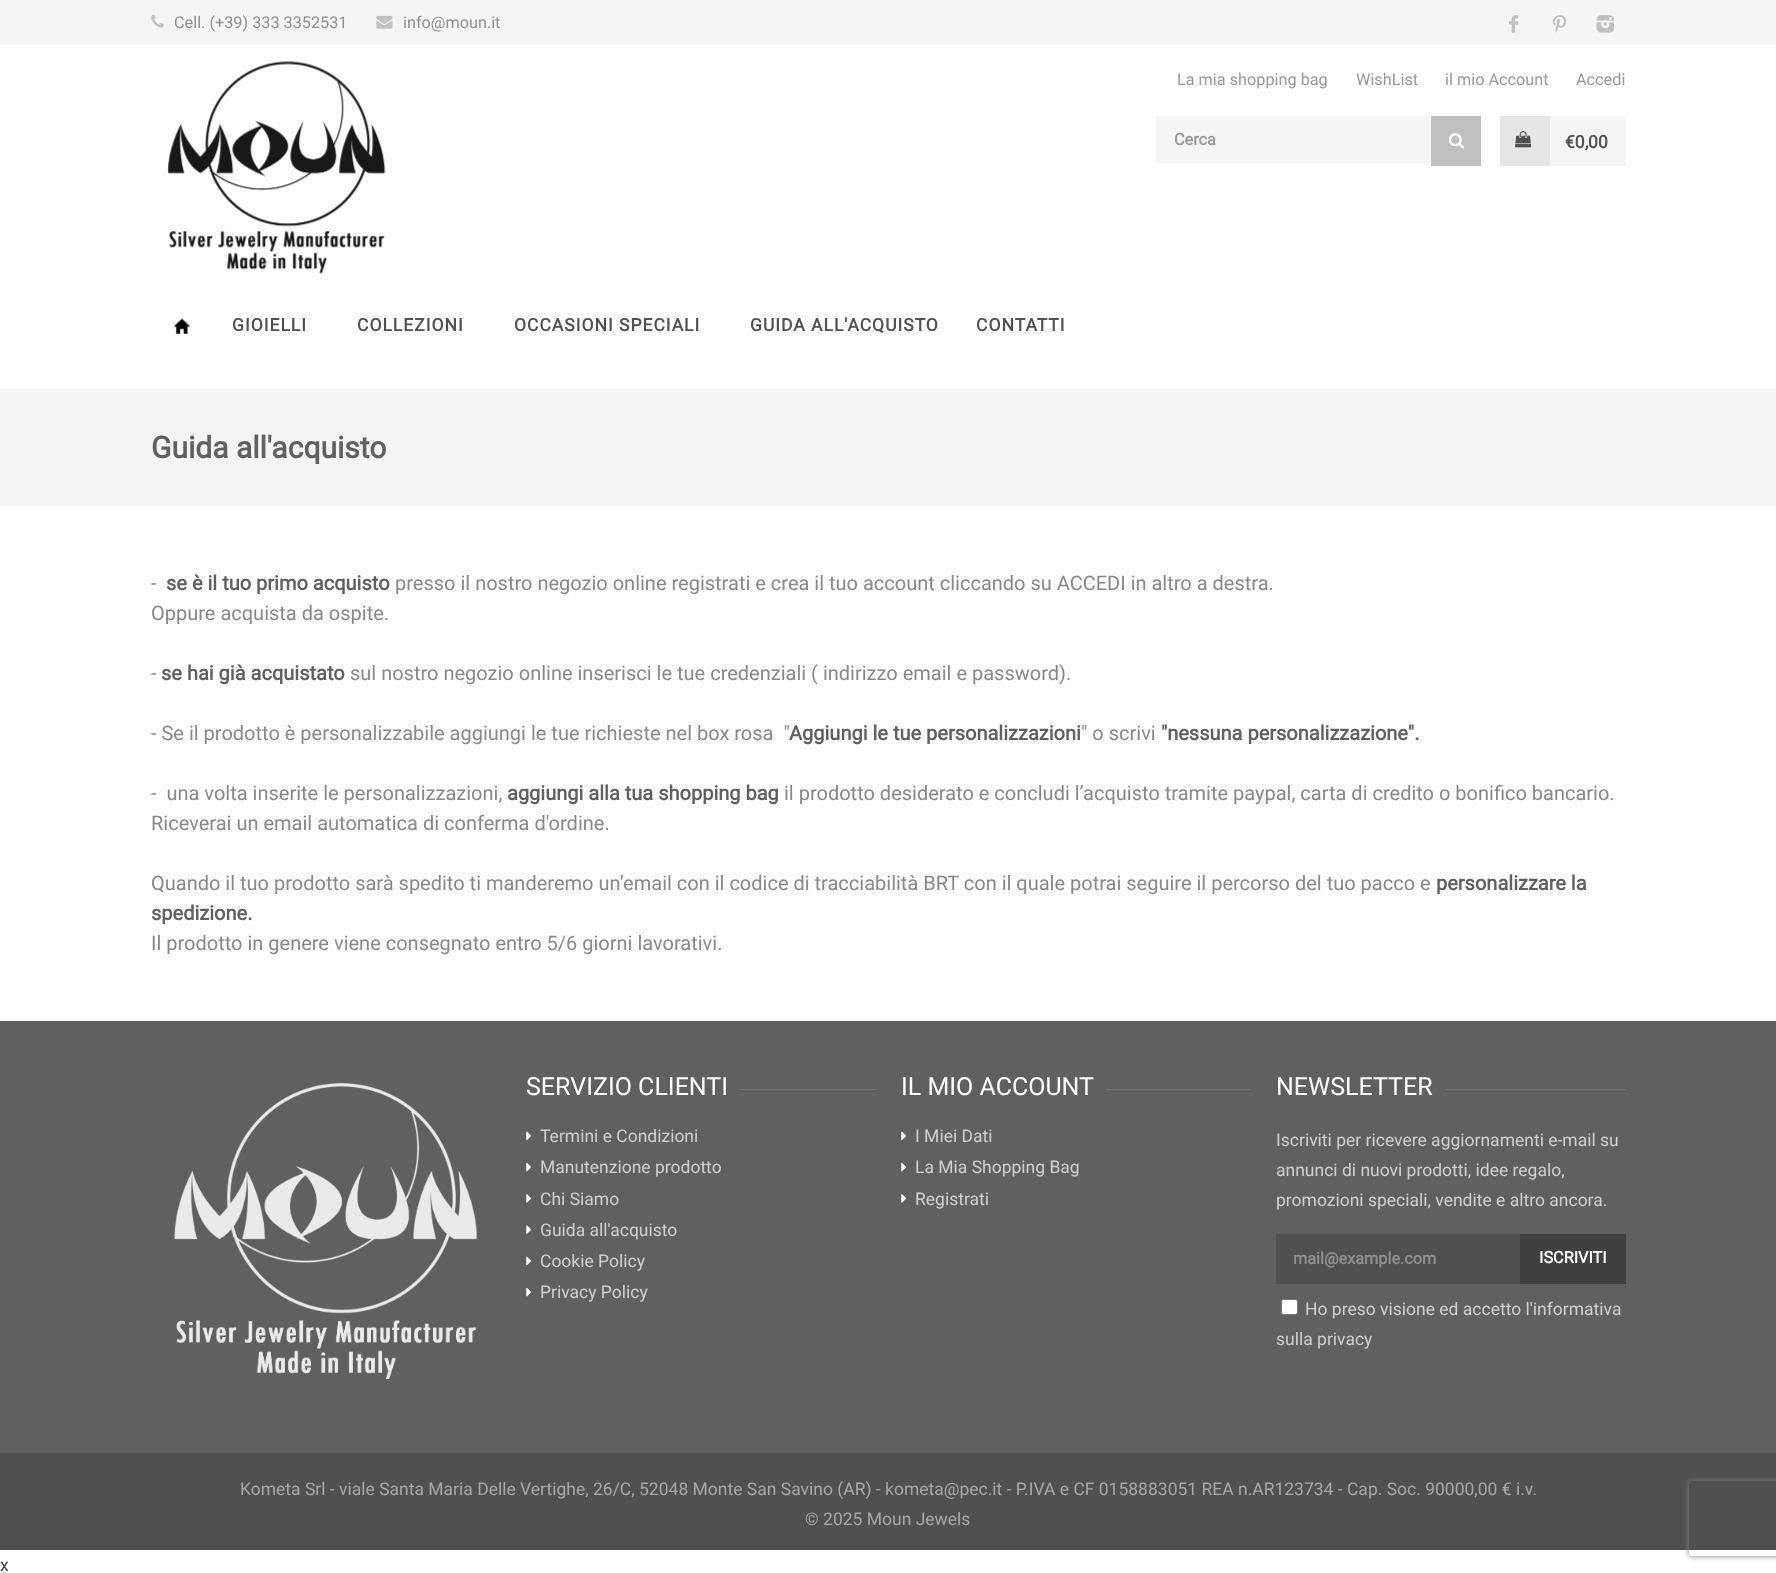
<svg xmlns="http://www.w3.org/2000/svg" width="1776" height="1573">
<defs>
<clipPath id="clip1"><path d="M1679 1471h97v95h-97zm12.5 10h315c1.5 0 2.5 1 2.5 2.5v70c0 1.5-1 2.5-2.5 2.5h-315c-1.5 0-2.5-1-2.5-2.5v-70c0-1.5 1-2.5 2.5-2.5z" clip-rule="evenodd"/></clipPath>
</defs>
<rect width="100%" height="100%" fill="#fff"/>
<rect width="1776" height="45" fill="#f5f5f5"/>
<image x="151" y="14" width="13" height="14" href="media/1.png"/>
<text x="174" y="28" style="font-family:Roboto;font-size:16.25px;fill:#909090">Cell. (+39) 333 3352531</text>
<image x="376" y="15" width="17" height="14" href="media/2.png"/>
<text x="403" y="28" style="font-family:Roboto;font-size:16.25px;fill:#909090">info@moun.it</text>
<image x="1509" y="15" width="10" height="18" href="media/3.png"/>
<image x="1552" y="15" width="15" height="18" href="media/4.png"/>
<image x="1596" y="15" width="18" height="18" href="media/5.png"/>
<image x="167" y="61" width="219" height="213" href="media/6.png"/>
<text x="1177" y="85" style="font-family:Roboto;font-size:16.25px;fill:#999">La mia shopping bag</text>
<text x="1356" y="85" style="font-family:Roboto;font-size:16.25px;fill:#999">WishList</text>
<text x="1445" y="85" style="font-family:Roboto;font-size:16.25px;fill:#999">il mio Account</text>
<text x="1576" y="85" style="font-family:Roboto;font-size:16.25px;fill:#999">Accedi</text>
<rect x="1156" y="116" width="275" height="47" fill="#f5f5f5"/>
<text x="1174" y="145" style="font-family:Roboto;font-size:16.25px;font-weight:bold;fill:#999">Cerca</text>
<rect x="1431" y="116" width="50" height="50" fill="#c0c0c0"/>
<image x="1448" y="133" width="17" height="16" href="media/7.png"/>
<rect x="1550" y="116" width="76" height="50" fill="#f5f5f5"/>
<rect x="1500" y="116" width="50" height="50" fill="#e6e6e6"/>
<image x="1515" y="131" width="17" height="17" href="media/8.png"/>
<text x="1565" y="148" style="font-family:Roboto;font-size:17.5px;font-weight:bold;fill:#505050">€0,00</text>
<image x="173" y="318" width="17" height="16" href="media/9.png"/>
<text x="232" y="331" style="font-family:Roboto;font-size:17.5px;font-weight:bold;letter-spacing:1px;fill:#505050">GIOIELLI</text>
<text x="357" y="331" style="font-family:Roboto;font-size:17.5px;font-weight:bold;letter-spacing:1px;fill:#505050">COLLEZIONI</text>
<text x="514" y="331" style="font-family:Roboto;font-size:17.5px;font-weight:bold;letter-spacing:1px;fill:#505050">OCCASIONI SPECIALI</text>
<text x="750" y="331" style="font-family:Roboto;font-size:17.5px;font-weight:bold;letter-spacing:1px;fill:#505050">GUIDA ALL'ACQUISTO</text>
<text x="976" y="331" style="font-family:Roboto;font-size:17.5px;font-weight:bold;letter-spacing:1px;fill:#505050">CONTATTI</text>
<rect y="389" width="1776" height="117" fill="#f4f4f4"/>
<text x="151" y="458" style="font-family:Roboto;font-size:30px;font-weight:bold;fill:#606060">Guida all'acquisto</text>
<text x="151" y="590" style="font-family:Roboto;font-size:20px;fill:#888">-</text>
<text x="166" y="590" style="font-family:Roboto;font-size:20px;font-weight:bold;fill:#606060">se è il tuo primo acquisto</text>
<text x="395" y="590" style="font-family:Roboto;font-size:20px;fill:#888">presso il nostro negozio online registrati e crea il tuo account cliccando su ACCEDI in altro a destra.</text>
<text x="151" y="620" style="font-family:Roboto;font-size:20px;fill:#888">Oppure acquista da ospite.</text>
<text x="151" y="680" style="font-family:Roboto;font-size:20px;fill:#888">-</text>
<text x="161" y="680" style="font-family:Roboto;font-size:20px;font-weight:bold;fill:#606060">se hai già acquistato</text>
<text x="350" y="680" style="font-family:Roboto;font-size:20px;fill:#888">sul nostro negozio online inserisci le tue credenziali ( indirizzo email e password).</text>
<text x="151" y="740" style="font-family:Roboto;font-size:20px;fill:#888" xml:space="preserve">- Se il prodotto è personalizzabile aggiungi le tue richieste nel box rosa  "</text>
<text x="789" y="740" style="font-family:Roboto;font-size:20px;font-weight:bold;fill:#606060">Aggiungi le tue personalizzazioni</text>
<text x="1081" y="740" style="font-family:Roboto;font-size:20px;fill:#888">" o scrivi</text>
<text x="1161" y="740" style="font-family:Roboto;font-size:20px;font-weight:bold;fill:#606060">"nessuna personalizzazione".</text>
<text x="151" y="800" style="font-family:Roboto;font-size:20px;fill:#888" xml:space="preserve">-  una volta inserite le personalizzazioni,</text>
<text x="507" y="800" style="font-family:Roboto;font-size:20px;font-weight:bold;fill:#606060">aggiungi alla tua shopping bag</text>
<text x="784" y="800" style="font-family:Roboto;font-size:20px;fill:#888">il prodotto desiderato e concludi l’acquisto tramite paypal, carta di credito o bonifico bancario.</text>
<text x="151" y="830" style="font-family:Roboto;font-size:20px;fill:#888">Riceverai un email automatica di conferma d'ordine.</text>
<text x="151" y="890" style="font-family:Roboto;font-size:20px;fill:#888">Quando il tuo prodotto sarà spedito ti manderemo un’email con il codice di tracciabilità BRT con il quale potrai seguire il percorso del tuo pacco e</text>
<text x="1436" y="890" style="font-family:Roboto;font-size:20px;font-weight:bold;fill:#606060">personalizzare la</text>
<text x="151" y="920" style="font-family:Roboto;font-size:20px;font-weight:bold;fill:#606060">spedizione.</text>
<text x="151" y="950" style="font-family:Roboto;font-size:20px;fill:#888">Il prodotto in genere viene consegnato entro 5/6 giorni lavorativi.</text>
<rect y="1021" width="1776" height="432" fill="#606060"/>
<image x="174" y="1083" width="304" height="296" href="media/10.png"/>
<text x="526" y="1095" style="font-family:Roboto;font-size:25px;fill:#fff">SERVIZIO CLIENTI</text>
<rect x="740" y="1089" width="136" height="1" fill="#747474"/>
<image x="526" y="1131" width="5" height="10" href="media/11.png"/>
<text x="540" y="1142" style="font-family:Roboto;font-size:17.5px;fill:#d0d0d0">Termini e Condizioni</text>
<image x="526" y="1162" width="5" height="10" href="media/12.png"/>
<text x="540" y="1173" style="font-family:Roboto;font-size:17.5px;fill:#d0d0d0">Manutenzione prodotto</text>
<image x="526" y="1194" width="5" height="9" href="media/13.png"/>
<text x="540" y="1205" style="font-family:Roboto;font-size:17.5px;fill:#d0d0d0">Chi Siamo</text>
<image x="526" y="1225" width="5" height="9" href="media/14.png"/>
<text x="540" y="1236" style="font-family:Roboto;font-size:17.5px;fill:#d0d0d0">Guida all'acquisto</text>
<image x="526" y="1256" width="5" height="10" href="media/11.png"/>
<text x="540" y="1267" style="font-family:Roboto;font-size:17.5px;fill:#d0d0d0">Cookie Policy</text>
<image x="526" y="1287" width="5" height="10" href="media/12.png"/>
<text x="540" y="1298" style="font-family:Roboto;font-size:17.5px;fill:#d0d0d0">Privacy Policy</text>
<text x="901" y="1095" style="font-family:Roboto;font-size:25px;fill:#fff">IL MIO ACCOUNT</text>
<rect x="1106" y="1089" width="145" height="1" fill="#747474"/>
<image x="901" y="1131" width="5" height="10" href="media/11.png"/>
<text x="915" y="1142" style="font-family:Roboto;font-size:17.5px;fill:#d0d0d0">I Miei Dati</text>
<image x="901" y="1162" width="5" height="10" href="media/12.png"/>
<text x="915" y="1173" style="font-family:Roboto;font-size:17.5px;fill:#d0d0d0">La Mia Shopping Bag</text>
<image x="901" y="1194" width="5" height="9" href="media/13.png"/>
<text x="915" y="1205" style="font-family:Roboto;font-size:17.5px;fill:#d0d0d0">Registrati</text>
<text x="1276" y="1095" style="font-family:Roboto;font-size:25px;fill:#fff">NEWSLETTER</text>
<rect x="1445" y="1089" width="181" height="1" fill="#747474"/>
<text x="1276" y="1146" style="font-family:Roboto;font-size:17.5px;fill:#d0d0d0">Iscriviti per ricevere aggiornamenti e-mail su</text>
<text x="1276" y="1176" style="font-family:Roboto;font-size:17.5px;fill:#d0d0d0">annunci di nuovi prodotti, idee regalo,</text>
<text x="1276" y="1206" style="font-family:Roboto;font-size:17.5px;fill:#d0d0d0">promozioni speciali, vendite e altro ancora.</text>
<rect x="1276" y="1234" width="244" height="50" fill="#505050"/>
<text x="1293" y="1264" style="font-family:Roboto;font-size:16.25px;font-weight:bold;fill:#909090">mail@example.com</text>
<rect x="1520" y="1234" width="106" height="50" fill="#404040"/>
<text x="1539" y="1263" style="font-family:Roboto;font-size:16.25px;font-weight:bold;fill:#fff">ISCRIVITI</text>
<rect x="1281.5" y="1299.5" width="16" height="15" rx="2" fill="#fff" stroke="#767676"/>
<text x="1305" y="1315" style="font-family:Roboto;font-size:17.5px;fill:#d0d0d0">Ho preso visione ed accetto l'informativa</text>
<text x="1276" y="1345" style="font-family:Roboto;font-size:17.5px;fill:#d0d0d0">sulla privacy</text>
<rect y="1453" width="1776" height="97" fill="#505050"/>
<text x="240" y="1495" style="font-family:Roboto;font-size:17.5px;fill:#a8a8a8">Kometa Srl - viale Santa Maria Delle Vertighe, 26/C, 52048 Monte San Savino (AR) - kometa@pec.it - P.IVA e CF 0158883051 REA n.AR123734 - Cap. Soc. 90000,00 € i.v.</text>
<text x="805" y="1525" style="font-family:Roboto;font-size:17.5px;fill:#a8a8a8">© 2025 Moun Jewels</text>
<text x="0" y="1571" style="font-family:Roboto;font-size:17.5px;fill:#404040">x</text>
<g clip-path="url(#clip1)">
<rect x="1689" y="1481" width="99" height="75" rx="2.5" fill="#808080" filter="blur(3px)"/>
</g>
</svg>
